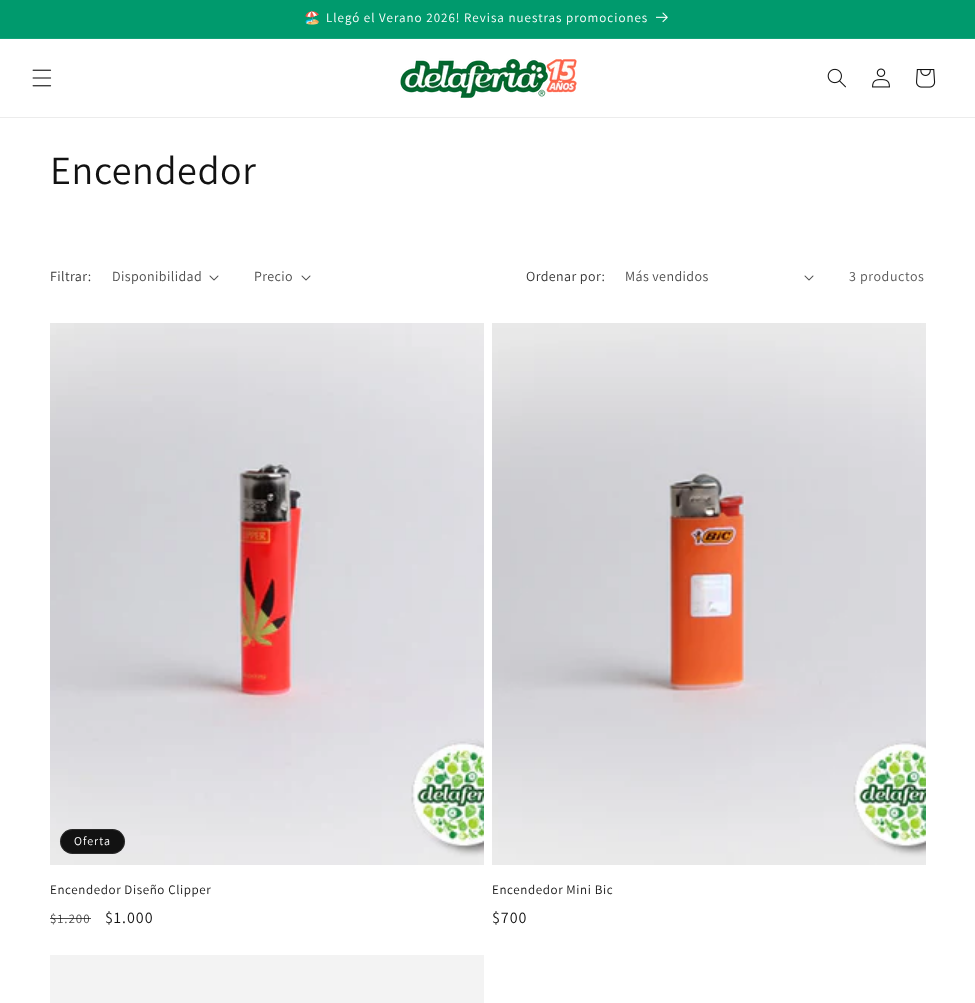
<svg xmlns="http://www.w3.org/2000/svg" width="975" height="1003">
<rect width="100%" height="100%" fill="#fff"/>
<rect width="975" height="38" fill="#009a6d"/>
<rect y="38" width="975" height="1" fill="#14a279"/>
<text x="304" y="22" style="font-family:Noto Color Emoji;font-size:13px;letter-spacing:1px;fill:#fff">🏖️</text>
<text x="326" y="22" style="font-family:Assistant;font-size:13px;letter-spacing:1px;fill:#fff">Llegó el Verano 2026! Revisa nuestras promociones</text>
<image x="656" y="12" width="12" height="11" href="media/1.png"/>
<rect y="117" width="975" height="1" fill="#ececec"/>
<image x="32" y="69" width="20" height="18" href="media/2.png"/>
<image x="400" y="58" width="177" height="40" href="media/3.png"/>
<image x="827" y="68" width="19" height="20" href="media/4.png"/>
<image x="872" y="68" width="18" height="20" href="media/5.png"/>
<image x="916" y="69" width="20" height="19" href="media/6.png"/>
<text x="50" y="184" style="font-family:Assistant;font-size:40px;letter-spacing:0.6px;fill:#121212">Encendedor</text>
<text x="50" y="281" style="font-family:Assistant;font-size:14px;letter-spacing:0.4px;fill:#363636">Filtrar:</text>
<text x="112" y="281" style="font-family:Assistant;font-size:14px;letter-spacing:0.4px;fill:#4d4d4d">Disponibilidad</text>
<image x="209" y="275" width="10" height="6" href="media/7.png"/>
<text x="254" y="281" style="font-family:Assistant;font-size:14px;letter-spacing:0.4px;fill:#4d4d4d">Precio</text>
<image x="301" y="275" width="10" height="6" href="media/7.png"/>
<text x="526" y="281" style="font-family:Assistant;font-size:14px;letter-spacing:0.4px;fill:#363636">Ordenar por:</text>
<text x="625" y="281" style="font-family:Assistant;font-size:14px;letter-spacing:0.4px;fill:#4d4d4d">Más vendidos</text>
<image x="804" y="275" width="10" height="6" href="media/7.png"/>
<text x="849" y="281" style="font-family:Assistant;font-size:14px;letter-spacing:0.6px;fill:#595959">3 productos</text>
<image x="50" y="323" width="434" height="542" href="media/8.png"/>
<rect x="60" y="829" width="65" height="25" rx="12.5" fill="#121212"/>
<rect x="60.5" y="829.5" width="64" height="24" rx="12" fill="none" stroke="#ffffff1a"/>
<text x="74" y="845" style="font-family:Assistant;font-size:12px;letter-spacing:1px;fill:#fff">Oferta</text>
<text x="50" y="894" style="font-family:Assistant;font-size:13px;letter-spacing:0.6px;fill:#121212">Encendedor Diseño Clipper</text>
<text x="50" y="923" style="font-family:Assistant;font-size:13px;letter-spacing:1px;fill:#4d4d4d">$1.200</text>
<rect x="50" y="918" width="41" height="1" fill="#121212bf"/>
<text x="105" y="923" style="font-family:Assistant;font-size:16px;letter-spacing:1px;fill:#121212">$1.000</text>
<image x="492" y="323" width="434" height="542" href="media/9.png"/>
<text x="492" y="894" style="font-family:Assistant;font-size:13px;letter-spacing:0.6px;fill:#121212">Encendedor Mini Bic</text>
<text x="492" y="923" style="font-family:Assistant;font-size:16px;letter-spacing:1px;fill:#121212">$700</text>
<rect x="50" y="955" width="434" height="48" fill="#f3f3f3"/>
</svg>
